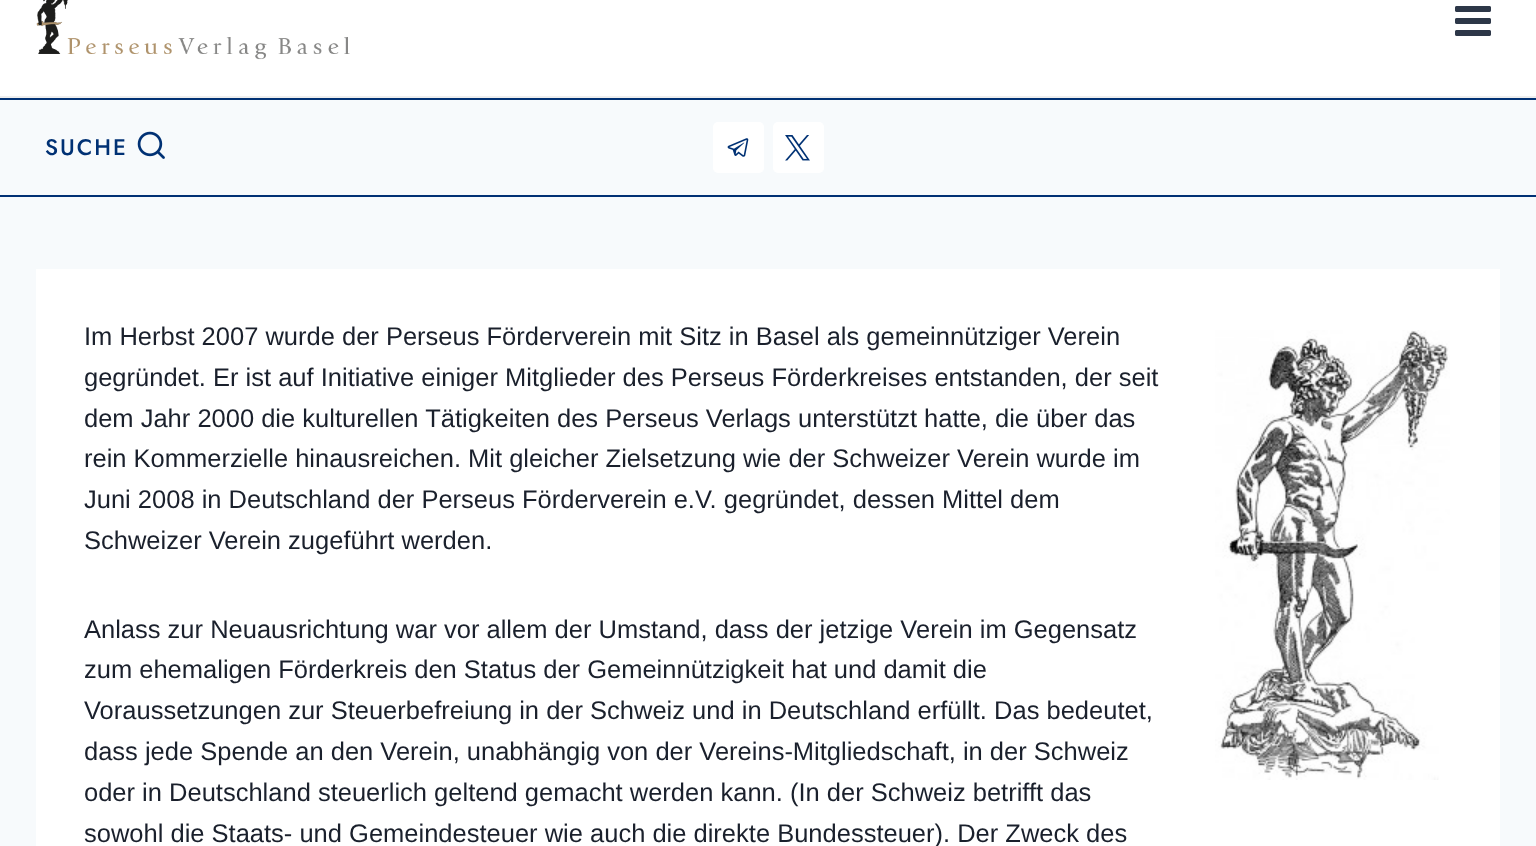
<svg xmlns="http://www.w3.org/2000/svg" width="1536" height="846">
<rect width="100%" height="100%" fill="#f7fafc"/>
<rect width="1536" height="96" fill="#fff"/>
<rect y="96" width="1536" height="2" fill="#eee"/>
<image x="36" y="0" width="314" height="60" href="media/1.png"/>
<image x="1455" y="6" width="36" height="30" href="media/2.png"/>
<rect y="98" width="1536" height="2" fill="#003174"/>
<rect y="195" width="1536" height="2" fill="#003174"/>
<text x="45" y="155" style="font-family:Jost;font-size:22.5px;font-weight:500;letter-spacing:2px;fill:#003174">SUCHE</text>
<image x="137" y="131" width="28" height="28" href="media/3.png"/>
<rect x="713" y="122" width="51" height="51" rx="5" fill="#fff"/>
<image x="727" y="138" width="22" height="19" href="media/4.png"/>
<rect x="773" y="122" width="51" height="51" rx="5" fill="#fff"/>
<image x="785" y="135" width="25" height="26" href="media/5.png"/>
<rect x="36" y="269" width="1464" height="577" fill="#fff"/>
<text x="84" y="345" style="font-family:Liberation Sans;font-size:25.5px;fill:#1a202c">Im Herbst 2007 wurde der Perseus Förderverein mit Sitz in Basel als gemeinnütziger Verein</text>
<text x="84" y="386" style="font-family:Liberation Sans;font-size:25.5px;fill:#1a202c">gegründet. Er ist auf Initiative einiger Mitglieder des Perseus Förderkreises entstanden, der seit</text>
<text x="84" y="427" style="font-family:Liberation Sans;font-size:25.5px;fill:#1a202c">dem Jahr 2000 die kulturellen Tätigkeiten des Perseus Verlags unterstützt hatte, die über das</text>
<text x="84" y="467" style="font-family:Liberation Sans;font-size:25.5px;fill:#1a202c">rein Kommerzielle hinausreichen. Mit gleicher Zielsetzung wie der Schweizer Verein wurde im</text>
<text x="84" y="508" style="font-family:Liberation Sans;font-size:25.5px;fill:#1a202c">Juni 2008 in Deutschland der Perseus Förderverein e.V. gegründet, dessen Mittel dem</text>
<text x="84" y="549" style="font-family:Liberation Sans;font-size:25.5px;fill:#1a202c">Schweizer Verein zugeführt werden.</text>
<image x="1215" y="330" width="235" height="450" href="media/6.png"/>
<text x="84" y="638" style="font-family:Liberation Sans;font-size:25.5px;fill:#1a202c">Anlass zur Neuausrichtung war vor allem der Umstand, dass der jetzige Verein im Gegensatz</text>
<text x="84" y="678" style="font-family:Liberation Sans;font-size:25.5px;fill:#1a202c">zum ehemaligen Förderkreis den Status der Gemeinnützigkeit hat und damit die</text>
<text x="84" y="719" style="font-family:Liberation Sans;font-size:25.5px;fill:#1a202c">Voraussetzungen zur Steuerbefreiung in der Schweiz und in Deutschland erfüllt. Das bedeutet,</text>
<text x="84" y="760" style="font-family:Liberation Sans;font-size:25.5px;fill:#1a202c">dass jede Spende an den Verein, unabhängig von der Vereins-Mitgliedschaft, in der Schweiz</text>
<text x="84" y="801" style="font-family:Liberation Sans;font-size:25.5px;fill:#1a202c">oder in Deutschland steuerlich geltend gemacht werden kann. (In der Schweiz betrifft das</text>
<text x="84" y="842" style="font-family:Liberation Sans;font-size:25.5px;fill:#1a202c">sowohl die Staats- und Gemeindesteuer wie auch die direkte Bundessteuer). Der Zweck des</text>
</svg>
